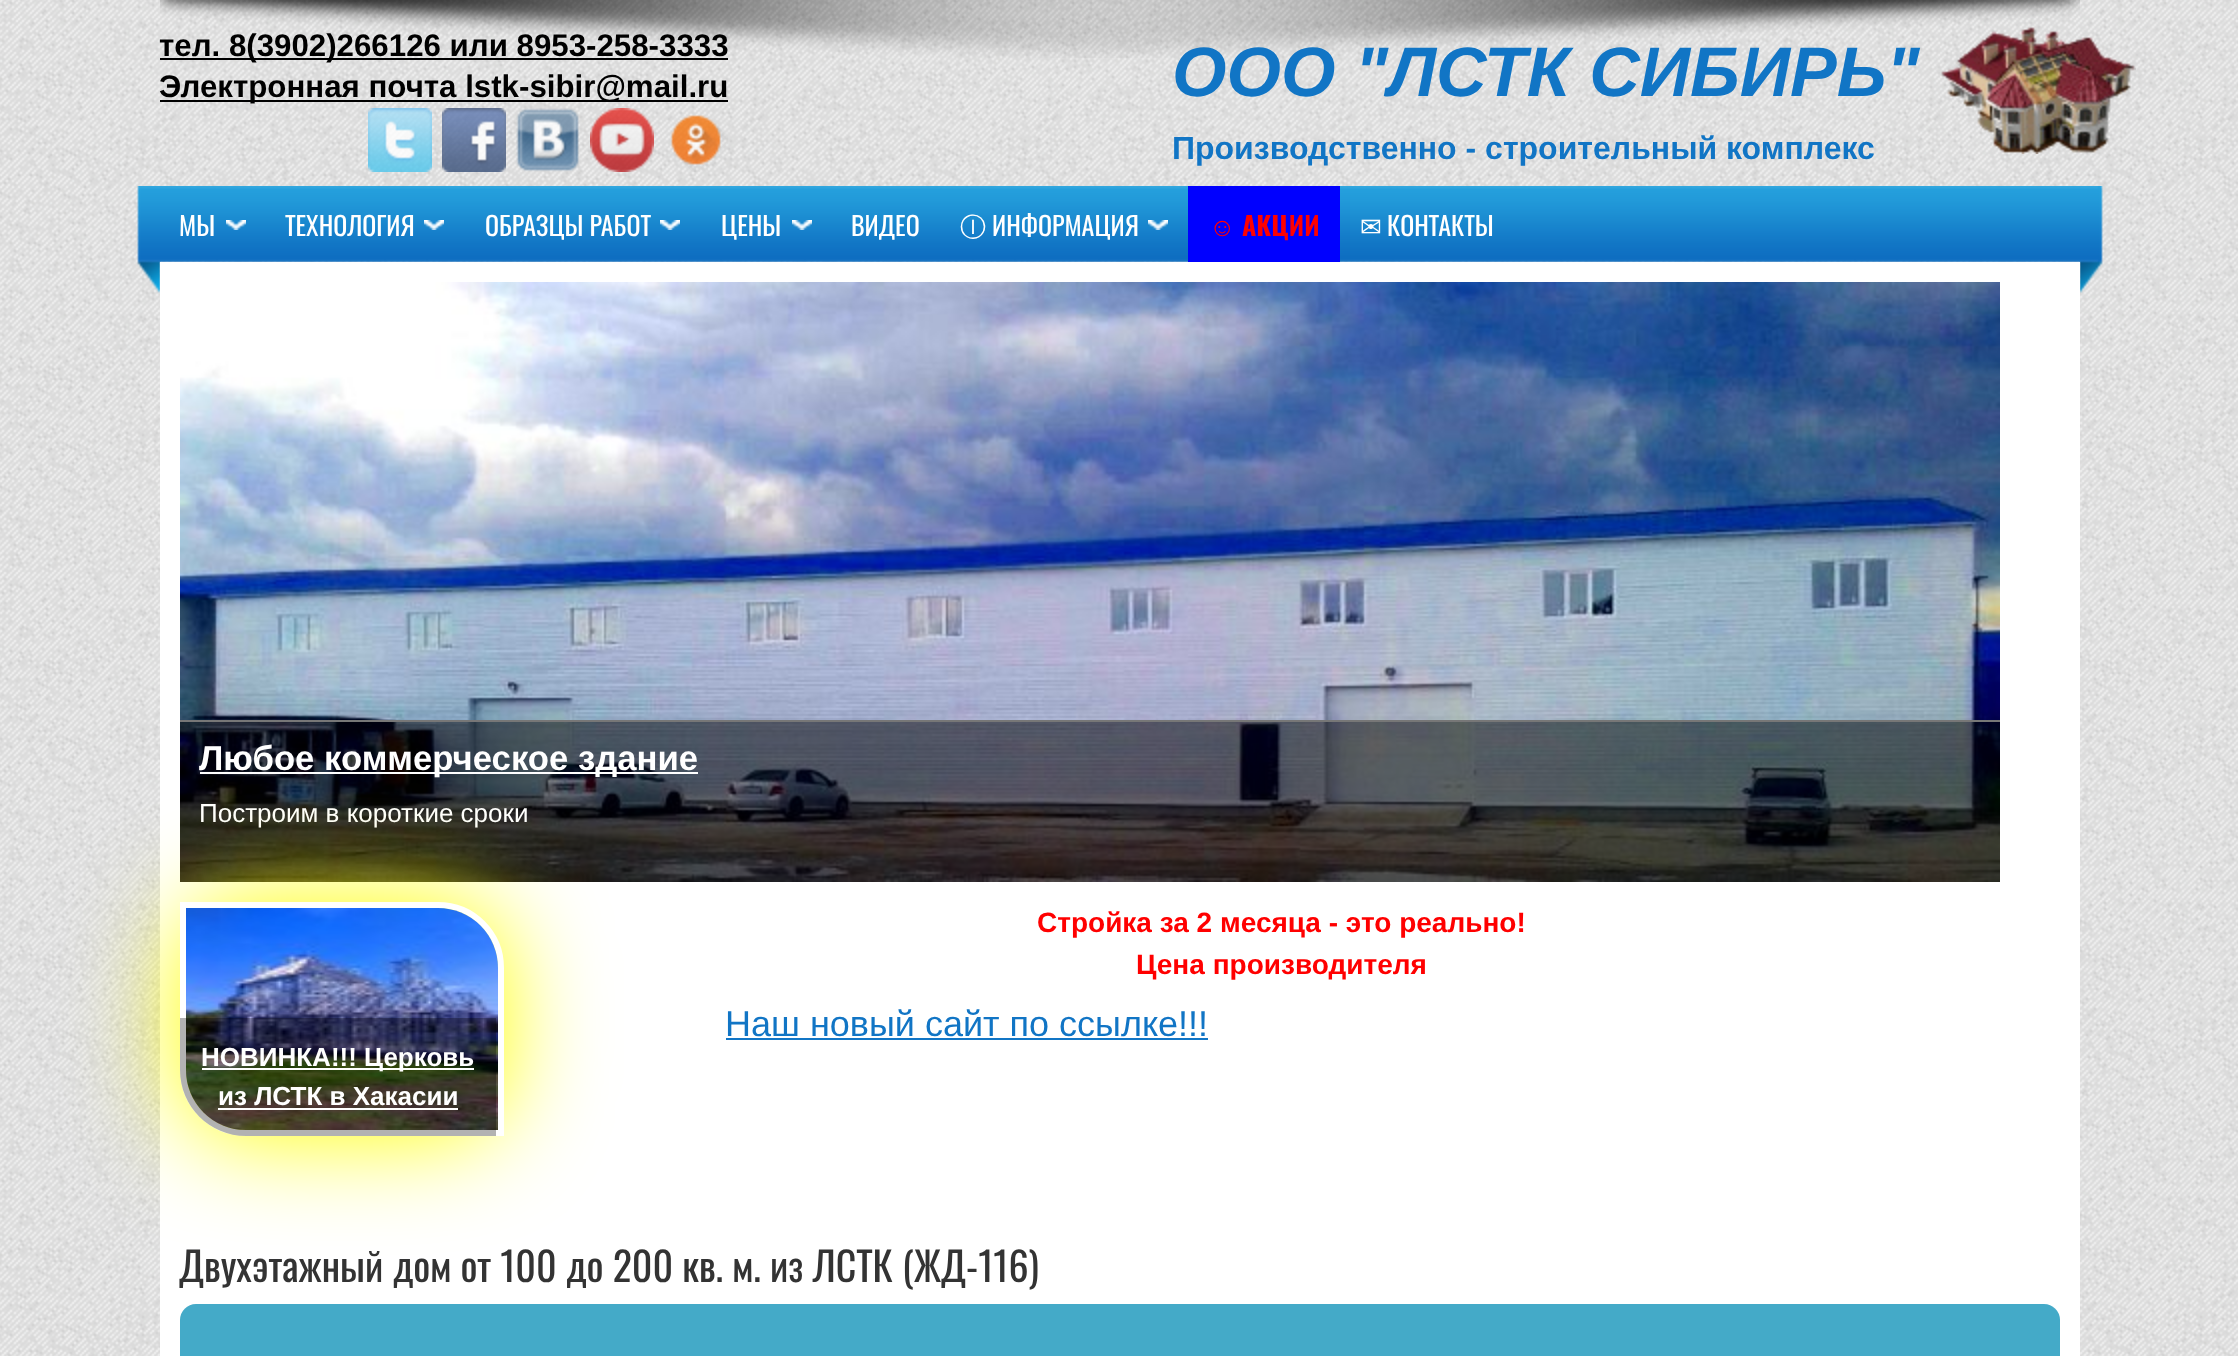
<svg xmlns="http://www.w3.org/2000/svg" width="2238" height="1356">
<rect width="100%" height="100%" fill="#fff"/>
<image x="0" y="0" width="2238" height="1356" href="media/1.png"/>
<image x="160" y="0" width="1920" height="58" href="media/2.png"/>
<rect x="160" y="58" width="568" height="2" fill="#000"/>
<text x="159" y="56" style="font-family:Liberation Sans;font-size:31.25px;font-weight:bold;fill:#000">тел. 8(3902)266126 или 8953-258-3333</text>
<rect x="160" y="100" width="568" height="2" fill="#000"/>
<text x="159" y="97" style="font-family:Liberation Sans;font-size:31.25px;font-weight:bold;fill:#000">Электронная почта lstk-sibir@mail.ru</text>
<image x="368" y="108" width="64" height="64" href="media/3.png"/>
<image x="442" y="108" width="64" height="64" href="media/4.png"/>
<image x="516" y="108" width="63" height="64" href="media/5.png"/>
<image x="590" y="108" width="64" height="64" href="media/6.png"/>
<image x="671" y="115" width="57" height="57" href="media/7.png"/>
<text x="1172" y="96" style="font-family:Liberation Sans;font-size:70px;font-weight:bold;font-style:italic;fill:#1175c5">ООО "ЛСТК СИБИРЬ"</text>
<text x="1172" y="159" style="font-family:Liberation Sans;font-size:32px;font-weight:bold;fill:#1175c5">Производственно - строительный комплекс</text>
<image x="1941" y="27" width="195" height="127" href="media/8.png"/>
<image x="137" y="186" width="1966" height="107" href="media/9.png"/>
<image x="226" y="220" width="20" height="10" href="media/10.png"/>
<text x="179" y="236" style="font-family:Oswald;font-size:26px;fill:#fff">МЫ</text>
<image x="424" y="220" width="20" height="10" href="media/10.png"/>
<text x="285" y="236" style="font-family:Oswald;font-size:26px;fill:#fff">ТЕХНОЛОГИЯ</text>
<image x="660" y="220" width="20" height="10" href="media/10.png"/>
<text x="485" y="236" style="font-family:Oswald;font-size:26px;fill:#fff">ОБРАЗЦЫ РАБОТ</text>
<image x="792" y="220" width="20" height="10" href="media/10.png"/>
<text x="721" y="236" style="font-family:Oswald;font-size:26px;fill:#fff">ЦЕНЫ</text>
<text x="851" y="236" style="font-family:Oswald;font-size:26px;fill:#fff">ВИДЕО</text>
<image x="1148" y="220" width="20" height="10" href="media/10.png"/>
<text x="960" y="236" style="font-family:WenQuanYi Zen Hei;font-size:26px;font-weight:500;fill:#fff">Ⓘ</text>
<text x="992" y="236" style="font-family:Oswald;font-size:26px;fill:#fff">ИНФОРМАЦИЯ</text>
<rect x="1188" y="186" width="152" height="76" fill="#00f"/>
<text x="1209" y="236" style="font-family:Liberation Sans;font-size:26px;font-weight:bold;fill:#f00">☺</text>
<text x="1242" y="236" style="font-family:Oswald;font-size:26px;font-weight:bold;fill:#f00">АКЦИИ</text>
<text x="1360" y="236" style="font-family:DejaVu Sans;font-size:26px;fill:#fff">✉</text>
<text x="1387" y="236" style="font-family:Oswald;font-size:26px;fill:#fff">КОНТАКТЫ</text>
<rect x="160" y="262" width="1920" height="1094" fill="#fff"/>
<image x="180" y="282" width="1820" height="600" href="media/11.png"/>
<rect x="180" y="722" width="1820" height="160" fill="#00000080"/>
<rect x="180" y="720" width="1820" height="2" fill="#777"/>
<rect x="200" y="772" width="498" height="2" fill="#fff"/>
<text x="199" y="770" style="font-family:Liberation Sans;font-size:34.7px;font-weight:bold;fill:#fff">Любое коммерческое здание</text>
<text x="199" y="822" style="font-family:Liberation Sans;font-size:26px;fill:#fff">Построим в короткие сроки</text>
<text x="1037" y="932" style="font-family:Liberation Sans;font-size:28px;font-weight:bold;fill:#f00">Стройка за 2 месяца - это реально!</text>
<text x="1136" y="974" style="font-family:Liberation Sans;font-size:28px;font-weight:bold;fill:#f00">Цена производителя</text>
<text x="725" y="1036" style="font-family:Liberation Sans;font-size:36px;fill:#1175c5">Наш новый сайт по ссылке!!!</text>
<rect x="726" y="1038" width="482" height="2" fill="#1175c5"/>
<rect x="180" y="902" width="324" height="234" rx="66" fill="#ff0" filter="blur(50px)"/>
<path d="M183 905h255c35 0 63 28 63 63v165h-255c-35 0-63-28-63-63z" fill="none" stroke="#fff" stroke-width="6"/>
<image x="186" y="908" width="312" height="222" href="media/12.png"/>
<path d="M180 1018h316v118h-250c-36.5 0-66-29.5-66-66z" fill="#0000004d"/>
<rect x="202" y="1068" width="272" height="2" fill="#fff"/>
<text x="201" y="1066" style="font-family:Liberation Sans;font-size:26px;font-weight:bold;fill:#fff">НОВИНКА!!! Церковь</text>
<text x="218" y="1105" style="font-family:Liberation Sans;font-size:26px;font-weight:bold;fill:#fff">из ЛСТК в Хакасии</text>
<rect x="218" y="1108" width="240" height="2" fill="#fff"/>
<text x="179" y="1282" style="font-family:Oswald;font-size:40px;fill:#333">Двухэтажный дом от 100 до 200 кв. м. из ЛСТК (ЖД-116)</text>
<rect x="180" y="1304" width="1880" height="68" rx="16" fill="#44aac8"/>
</svg>
